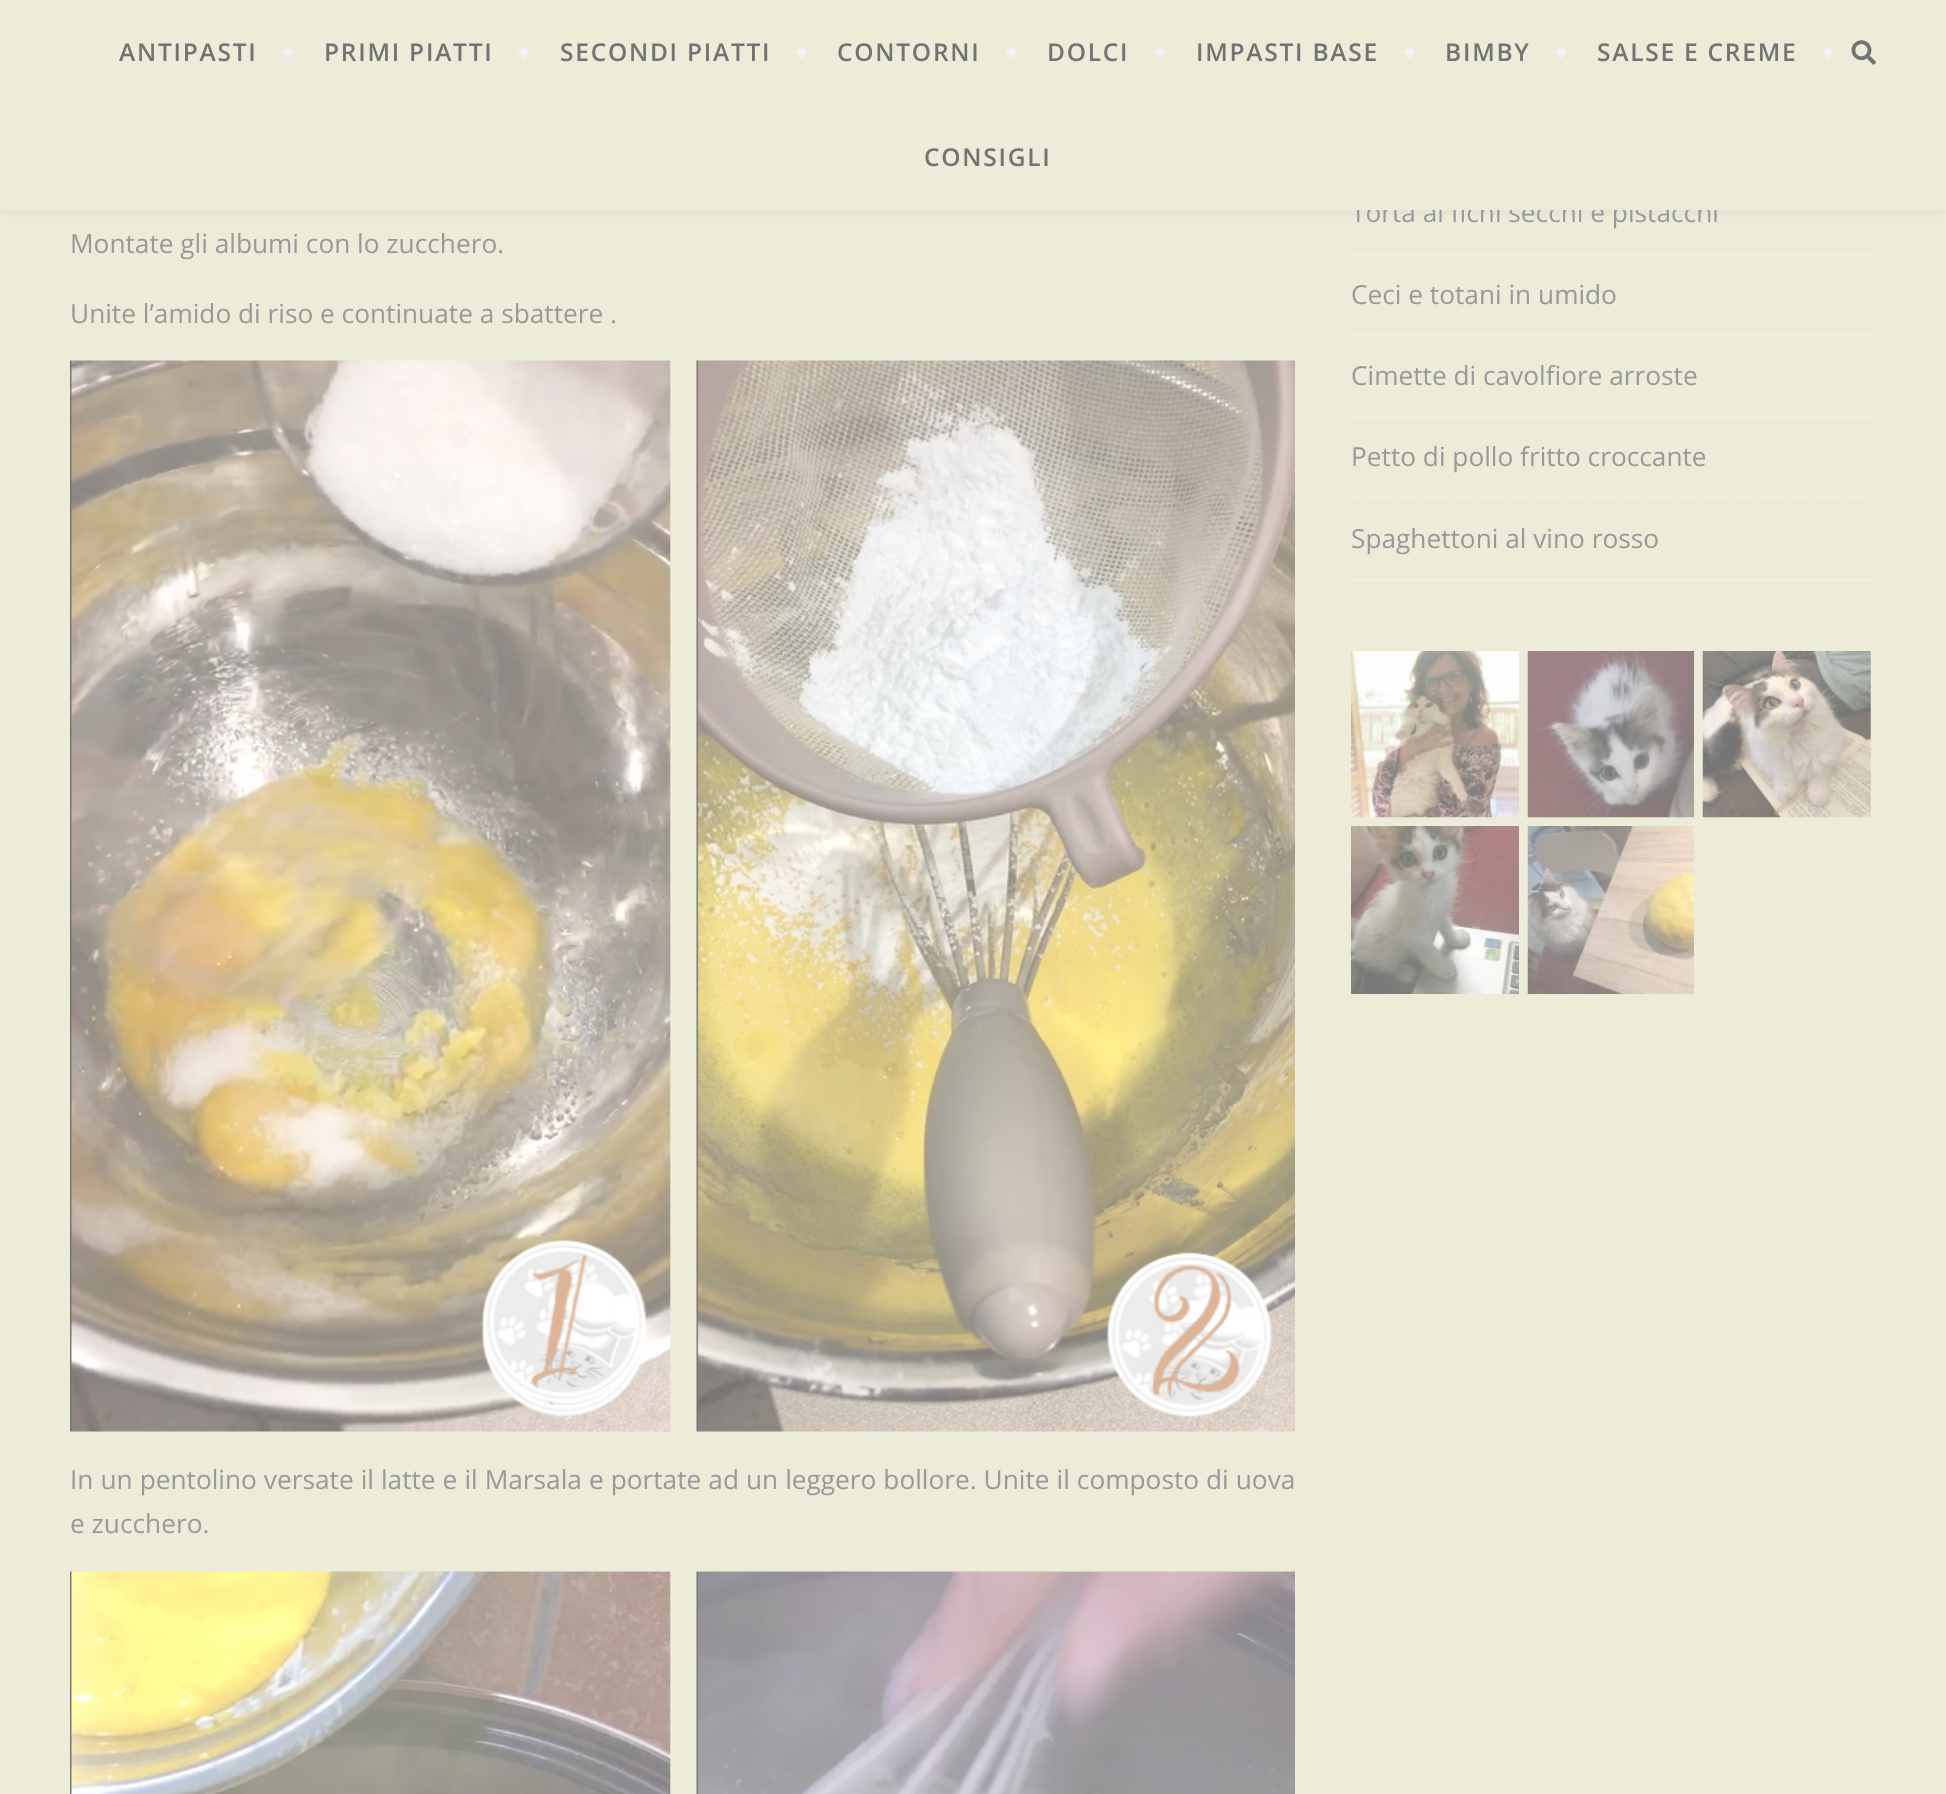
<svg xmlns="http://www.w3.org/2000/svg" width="1946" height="1794">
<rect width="100%" height="100%" fill="#ececd9"/>
<rect y="2" width="1946" height="210" fill="#7373731a" filter="blur(4.5px)"/>
<text x="1351" y="222" style="font-family:Open Sans;font-size:26.25px;fill:#999">Torta ai fichi secchi e pistacchi</text>
<rect width="1946" height="210" fill="#ececd9"/>
<text x="119" y="61" style="font-family:Open Sans;font-size:24.5px;font-weight:600;letter-spacing:1.75px;fill:#737373">ANTIPASTI</text>
<path d="M282 52.5l6-6l6 6l-6 6z" fill="#f2f2f2"/>
<text x="324" y="61" style="font-family:Open Sans;font-size:24.5px;font-weight:600;letter-spacing:1.75px;fill:#737373">PRIMI PIATTI</text>
<path d="M517.5 52.5l6.5-6l6 6l-6 6z" fill="#f2f2f2"/>
<text x="560" y="61" style="font-family:Open Sans;font-size:24.5px;font-weight:600;letter-spacing:1.75px;fill:#737373">SECONDI PIATTI</text>
<path d="M795.5 52.5l6-6l6 6l-6 6z" fill="#f2f2f2"/>
<text x="837" y="61" style="font-family:Open Sans;font-size:24.5px;font-weight:600;letter-spacing:1.75px;fill:#737373">CONTORNI</text>
<path d="M1005 52.5l6.5-6l6 6l-6 6z" fill="#f2f2f2"/>
<text x="1047" y="61" style="font-family:Open Sans;font-size:24.5px;font-weight:600;letter-spacing:1.75px;fill:#737373">DOLCI</text>
<path d="M1154 52.5l6-6l6 6l-6 6z" fill="#f2f2f2"/>
<text x="1196" y="61" style="font-family:Open Sans;font-size:24.5px;font-weight:600;letter-spacing:1.75px;fill:#737373">IMPASTI BASE</text>
<path d="M1403 52.5l6.5-6l6 6l-6 6z" fill="#f2f2f2"/>
<text x="1445" y="61" style="font-family:Open Sans;font-size:24.5px;font-weight:600;letter-spacing:1.75px;fill:#737373">BIMBY</text>
<path d="M1555 52.5l6-6l6.5 6l-6.5 6z" fill="#f2f2f2"/>
<text x="1597" y="61" style="font-family:Open Sans;font-size:24.5px;font-weight:600;letter-spacing:1.75px;fill:#737373">SALSE E CREME</text>
<path d="M1822 52.5l6-6l6 6l-6 6z" fill="#f2f2f2"/>
<text x="924" y="166" style="font-family:Open Sans;font-size:24.5px;font-weight:600;letter-spacing:1.75px;fill:#737373">CONSIGLI</text>
<image x="1851" y="40" width="25" height="25" href="media/1.png"/>
<text x="70" y="253" style="font-family:Open Sans;font-size:26.25px;fill:#999">Montate gli albumi con lo zucchero.</text>
<text x="70" y="323" style="font-family:Open Sans;font-size:26.25px;fill:#999">Unite l’amido di riso e continuate a sbattere .</text>
<image x="70" y="360" width="601" height="1072" href="media/2.png"/>
<image x="696" y="360" width="599" height="1072" href="media/3.png"/>
<text x="70" y="1489" word-spacing="0.2" style="font-family:Open Sans;font-size:26.25px;fill:#999">In un pentolino versate il latte e il Marsala e portate ad un leggero bollore. Unite il composto di uova</text>
<text x="70" y="1533" style="font-family:Open Sans;font-size:26.25px;fill:#999">e zucchero.</text>
<image x="70" y="1571" width="601" height="223" href="media/4.png"/>
<image x="696" y="1571" width="599" height="223" href="media/5.png"/>
<path d="M1351 254.5h525" fill="none" stroke="#f2f2f2" stroke-width="1.8" stroke-dasharray="1.75 1.75"/>
<path d="M1351 335h525" fill="none" stroke="#f2f2f2" stroke-width="1.8" stroke-dasharray="1.75 1.75"/>
<text x="1351" y="304" style="font-family:Open Sans;font-size:26.25px;fill:#999">Ceci e totani in umido</text>
<path d="M1351 417.5h525" fill="none" stroke="#f2f2f2" stroke-width="1.8" stroke-dasharray="1.75 1.75"/>
<text x="1351" y="385" style="font-family:Open Sans;font-size:26.25px;fill:#999">Cimette di cavolfiore arroste</text>
<path d="M1351 498h525" fill="none" stroke="#f2f2f2" stroke-width="1.8" stroke-dasharray="1.75 1.75"/>
<text x="1351" y="466" style="font-family:Open Sans;font-size:26.25px;fill:#999">Petto di pollo fritto croccante</text>
<path d="M1351 580h525" fill="none" stroke="#f2f2f2" stroke-width="1.8" stroke-dasharray="1.75 1.75"/>
<text x="1351" y="548" style="font-family:Open Sans;font-size:26.25px;fill:#999">Spaghettoni al vino rosso</text>
<image x="1351" y="651" width="168" height="167" href="media/6.png"/>
<image x="1527" y="651" width="167" height="167" href="media/7.png"/>
<image x="1702" y="651" width="169" height="167" href="media/8.png"/>
<image x="1351" y="826" width="168" height="168" href="media/9.png"/>
<image x="1527" y="826" width="167" height="168" href="media/10.png"/>
</svg>
